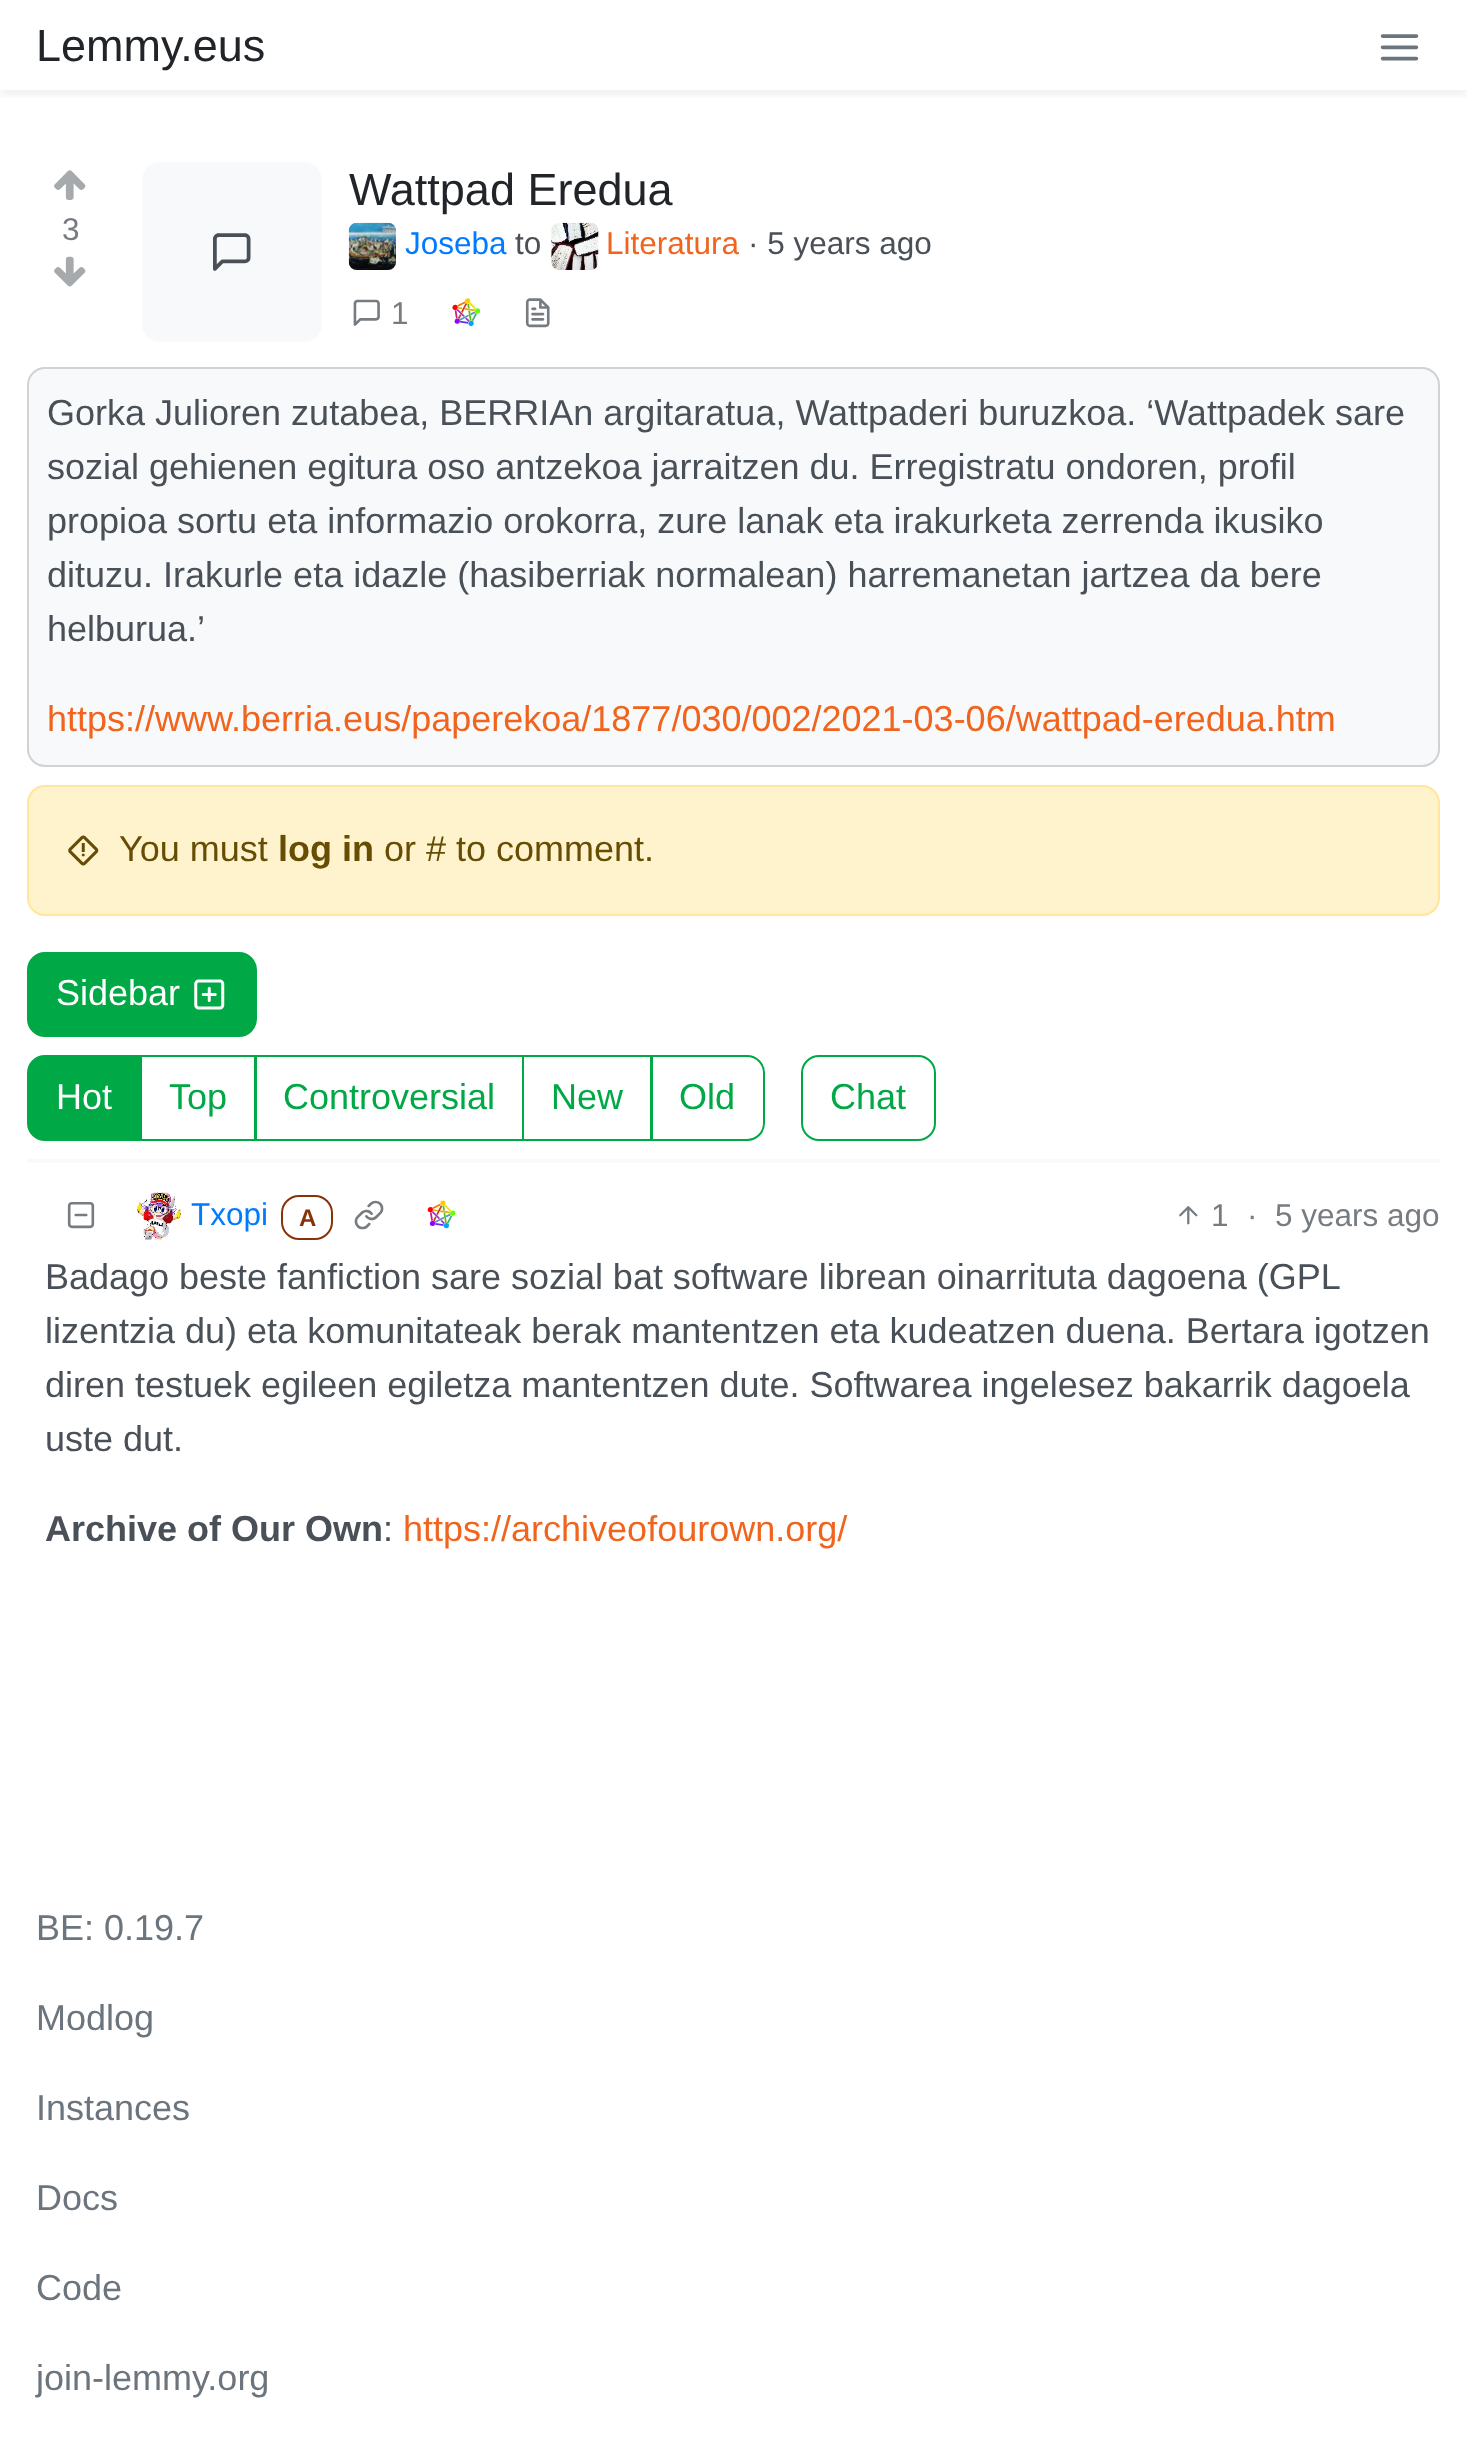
<svg xmlns="http://www.w3.org/2000/svg" width="1467" height="2458">
<defs>
<clipPath id="clip1"><rect x="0" y="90" width="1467" height="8"/></clipPath>
</defs>
<rect width="100%" height="100%" fill="#fff"/>
<g clip-path="url(#clip1)">
<rect y="5" width="1467" height="90" fill="#22222212" filter="blur(4.5px)"/>
</g>
<text x="36" y="61" style="font-family:Liberation Sans;font-size:45px;fill:#212529">Lemmy.eus</text>
<image x="1380" y="34" width="39" height="27" href="media/1.png"/>
<image x="54" y="170" width="32" height="30" href="media/2.png"/>
<text x="62" y="240" style="font-family:Liberation Sans;font-size:31.5px;fill:#777c81">3</text>
<image x="54" y="256" width="32" height="31" href="media/3.png"/>
<rect x="142" y="162" width="180" height="180" rx="18" fill="#f8f9fa"/>
<image x="213" y="233" width="38" height="38" href="media/4.png"/>
<text x="349" y="205" style="font-family:Liberation Sans;font-size:45px;fill:#212529">Wattpad Eredua</text>
<image x="348" y="222" width="48" height="48" href="media/5.png"/>
<text x="405" y="254" style="font-family:Liberation Sans;font-size:31.5px;fill:#007bff">Joseba</text>
<text x="515" y="254" style="font-family:Liberation Sans;font-size:31.5px;fill:#495057">to</text>
<image x="551" y="222" width="48" height="48" href="media/6.png"/>
<text x="606" y="254" style="font-family:Liberation Sans;font-size:31.5px;fill:#f1641e">Literatura</text>
<text x="748" y="254" style="font-family:Liberation Sans;font-size:31.5px;fill:#495057">· 5 years ago</text>
<image x="353" y="299" width="27" height="27" href="media/7.png"/>
<text x="391" y="324" style="font-family:Liberation Sans;font-size:31.5px;fill:#777c81">1</text>
<image x="452" y="298" width="29" height="28" href="media/8.png"/>
<image x="525" y="298" width="25" height="30" href="media/9.png"/>
<rect x="27" y="367" width="1413" height="400" rx="18" fill="#f8f9fa"/>
<rect x="28" y="368" width="1411" height="398" rx="17" fill="none" stroke="#2222222e" stroke-width="2"/>
<text x="47" y="425" style="font-family:Liberation Sans;font-size:36px;fill:#495057">Gorka Julioren zutabea, BERRIAn argitaratua, Wattpaderi buruzkoa. ‘Wattpadek sare</text>
<text x="47" y="479" style="font-family:Liberation Sans;font-size:36px;fill:#495057">sozial gehienen egitura oso antzekoa jarraitzen du. Erregistratu ondoren, profil</text>
<text x="47" y="533" style="font-family:Liberation Sans;font-size:36px;fill:#495057">propioa sortu eta informazio orokorra, zure lanak eta irakurketa zerrenda ikusiko</text>
<text x="47" y="587" style="font-family:Liberation Sans;font-size:36px;fill:#495057">dituzu. Irakurle eta idazle (hasiberriak normalean) harremanetan jartzea da bere</text>
<text x="47" y="641" style="font-family:Liberation Sans;font-size:36px;fill:#495057">helburua.’</text>
<text x="47" y="731" style="font-family:Liberation Sans;font-size:36px;fill:#f1641e">https://www.berria.eus/paperekoa/1877/030/002/2021-03-06/wattpad-eredua.htm</text>
<rect x="28" y="786" width="1411" height="129" rx="17" fill="#fff3cd" stroke="#ffe69c" stroke-width="2"/>
<image x="68" y="835" width="31" height="31" href="media/10.png"/>
<text x="119" y="861" style="font-family:Liberation Sans;font-size:36px;fill:#664d03">You must</text>
<text x="278" y="861" style="font-family:Liberation Sans;font-size:36px;font-weight:bold;fill:#664d03">log in</text>
<text x="384" y="861" style="font-family:Liberation Sans;font-size:36px;fill:#664d03">or # to comment.</text>
<rect x="28" y="953" width="228" height="83" rx="17" fill="#00a846" stroke="#00a846" stroke-width="2"/>
<text x="56" y="1005" style="font-family:Liberation Sans;font-size:36px;fill:#fff">Sidebar</text>
<image x="194" y="979" width="31" height="31" href="media/11.png"/>
<rect x="141" y="1056" width="115" height="84" fill="none" stroke="#00a846" stroke-width="2"/>
<path d="M45 1056h96v84h-96c-9.5 0-17-7.5-17-17v-50c0-9.5 7.5-17 17-17z" fill="#00a846" stroke="#00a846" stroke-width="2"/>
<text x="56" y="1109" style="font-family:Liberation Sans;font-size:36px;fill:#fff">Hot</text>
<text x="169" y="1109" style="font-family:Liberation Sans;font-size:36px;fill:#00a846">Top</text>
<rect x="255" y="1056" width="268" height="84" fill="none" stroke="#00a846" stroke-width="2"/>
<text x="283" y="1109" style="font-family:Liberation Sans;font-size:36px;fill:#00a846">Controversial</text>
<rect x="523" y="1056" width="129" height="84" fill="none" stroke="#00a846" stroke-width="2"/>
<text x="551" y="1109" style="font-family:Liberation Sans;font-size:36px;fill:#00a846">New</text>
<path d="M651 1056h96c9.5 0 17 7.5 17 17v50c0 9.5-7.5 17-17 17h-96z" fill="none" stroke="#00a846" stroke-width="2"/>
<text x="679" y="1109" style="font-family:Liberation Sans;font-size:36px;fill:#00a846">Old</text>
<rect x="802" y="1056" width="133" height="84" rx="17" fill="none" stroke="#00a846" stroke-width="2"/>
<text x="830" y="1109" style="font-family:Liberation Sans;font-size:36px;fill:#00a846">Chat</text>
<rect x="27" y="1159" width="1413" height="4" fill="#f8f9fa"/>
<image x="67" y="1202" width="28" height="27" href="media/12.png"/>
<image x="137" y="1192" width="44" height="48" href="media/13.png"/>
<text x="191" y="1225" style="font-family:Liberation Sans;font-size:31.5px;fill:#007bff">Txopi</text>
<rect x="282" y="1196" width="50" height="43" rx="17" fill="none" stroke="#873208" stroke-width="2"/>
<text x="299" y="1226" style="font-family:Liberation Sans;font-size:24px;font-weight:bold;fill:#873208">A</text>
<image x="354" y="1200" width="30" height="30" href="media/14.png"/>
<image x="427" y="1200" width="29" height="29" href="media/15.png"/>
<image x="1179" y="1206" width="19" height="19" href="media/16.png"/>
<text x="1211" y="1226" style="font-family:Liberation Sans;font-size:31.5px;fill:#777c81">1</text>
<text x="1247" y="1226" style="font-family:Liberation Sans;font-size:31.5px;fill:#777c81">·</text>
<text x="1275" y="1226" style="font-family:Liberation Sans;font-size:31.5px;fill:#777c81">5 years ago</text>
<text x="45" y="1289" word-spacing="-0.1" style="font-family:Liberation Sans;font-size:36px;fill:#495057">Badago beste fanfiction sare sozial bat software librean oinarrituta dagoena (GPL</text>
<text x="45" y="1343" style="font-family:Liberation Sans;font-size:36px;fill:#495057">lizentzia du) eta komunitateak berak mantentzen eta kudeatzen duena. Bertara igotzen</text>
<text x="45" y="1397" style="font-family:Liberation Sans;font-size:36px;fill:#495057">diren testuek egileen egiletza mantentzen dute. Softwarea ingelesez bakarrik dagoela</text>
<text x="45" y="1451" style="font-family:Liberation Sans;font-size:36px;fill:#495057">uste dut.</text>
<text x="45" y="1541" style="font-family:Liberation Sans;font-size:36px;font-weight:bold;fill:#495057">Archive of Our Own</text>
<text x="383" y="1541" style="font-family:Liberation Sans;font-size:36px;fill:#495057">:</text>
<text x="403" y="1541" style="font-family:Liberation Sans;font-size:36px;fill:#f1641e">https://archiveofourown.org/</text>
<text x="36" y="1940" style="font-family:Liberation Sans;font-size:36px;fill:#6c757d">BE: 0.19.7</text>
<text x="36" y="2030" style="font-family:Liberation Sans;font-size:36px;fill:#6c757d">Modlog</text>
<text x="36" y="2120" style="font-family:Liberation Sans;font-size:36px;fill:#6c757d">Instances</text>
<text x="36" y="2210" style="font-family:Liberation Sans;font-size:36px;fill:#6c757d">Docs</text>
<text x="36" y="2300" style="font-family:Liberation Sans;font-size:36px;fill:#6c757d">Code</text>
<text x="36" y="2390" style="font-family:Liberation Sans;font-size:36px;fill:#6c757d">join-lemmy.org</text>
</svg>
